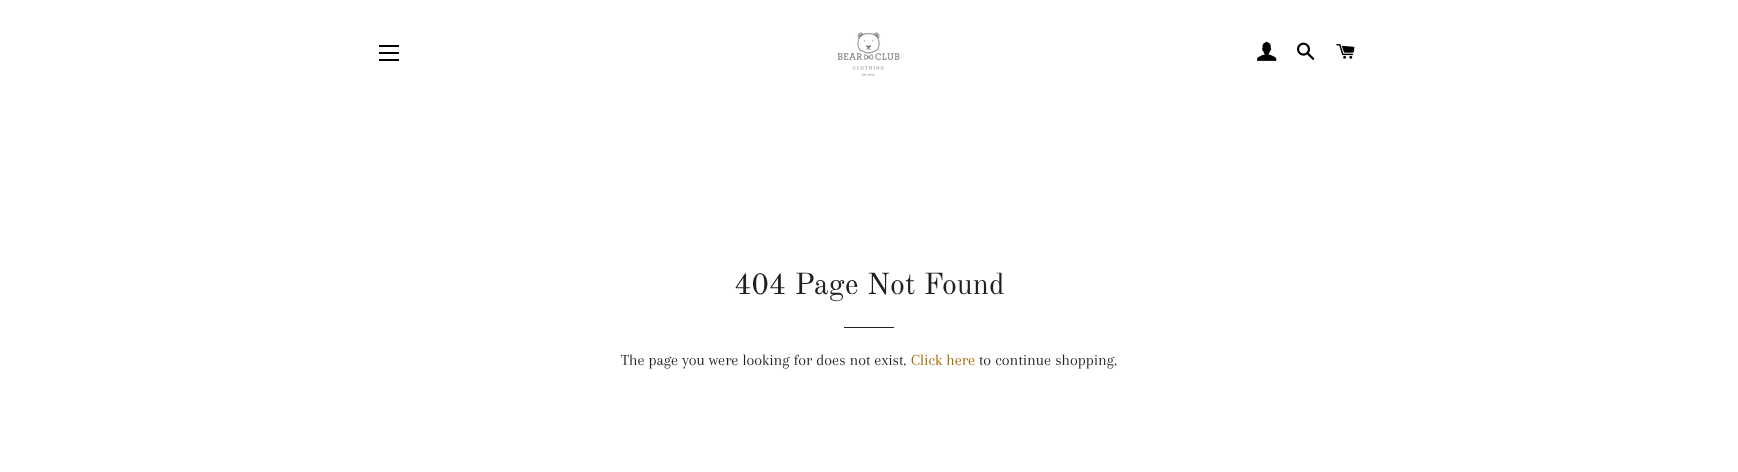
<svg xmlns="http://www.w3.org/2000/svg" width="1738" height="472">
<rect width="100%" height="100%" fill="#fff"/>
<rect x="379" y="45" width="20" height="2" fill="#000"/>
<rect x="379" y="52" width="20" height="2" fill="#000"/>
<rect x="379" y="59" width="20" height="2" fill="#000"/>
<image x="837" y="32" width="63" height="44" href="media/1.png"/>
<image x="1257" y="41" width="20" height="20" href="media/2.png"/>
<image x="1297" y="42" width="18" height="18" href="media/3.png"/>
<image x="1336" y="44" width="19" height="15" href="media/4.png"/>
<text x="734" y="294" style="font-family:Old Standard TT;font-size:30px;fill:#1f2021">404 Page Not Found</text>
<rect x="844" y="327" width="50" height="1" fill="#1f2021"/>
<text x="621" y="365" style="font-family:Arapey;font-size:16px;fill:#1f2021">The page you were looking for does not exist.</text>
<text x="911" y="365" style="font-family:Arapey;font-size:16px;fill:#a56600">Click here</text>
<text x="979" y="365" style="font-family:Arapey;font-size:16px;fill:#1f2021">to continue shopping.</text>
</svg>
